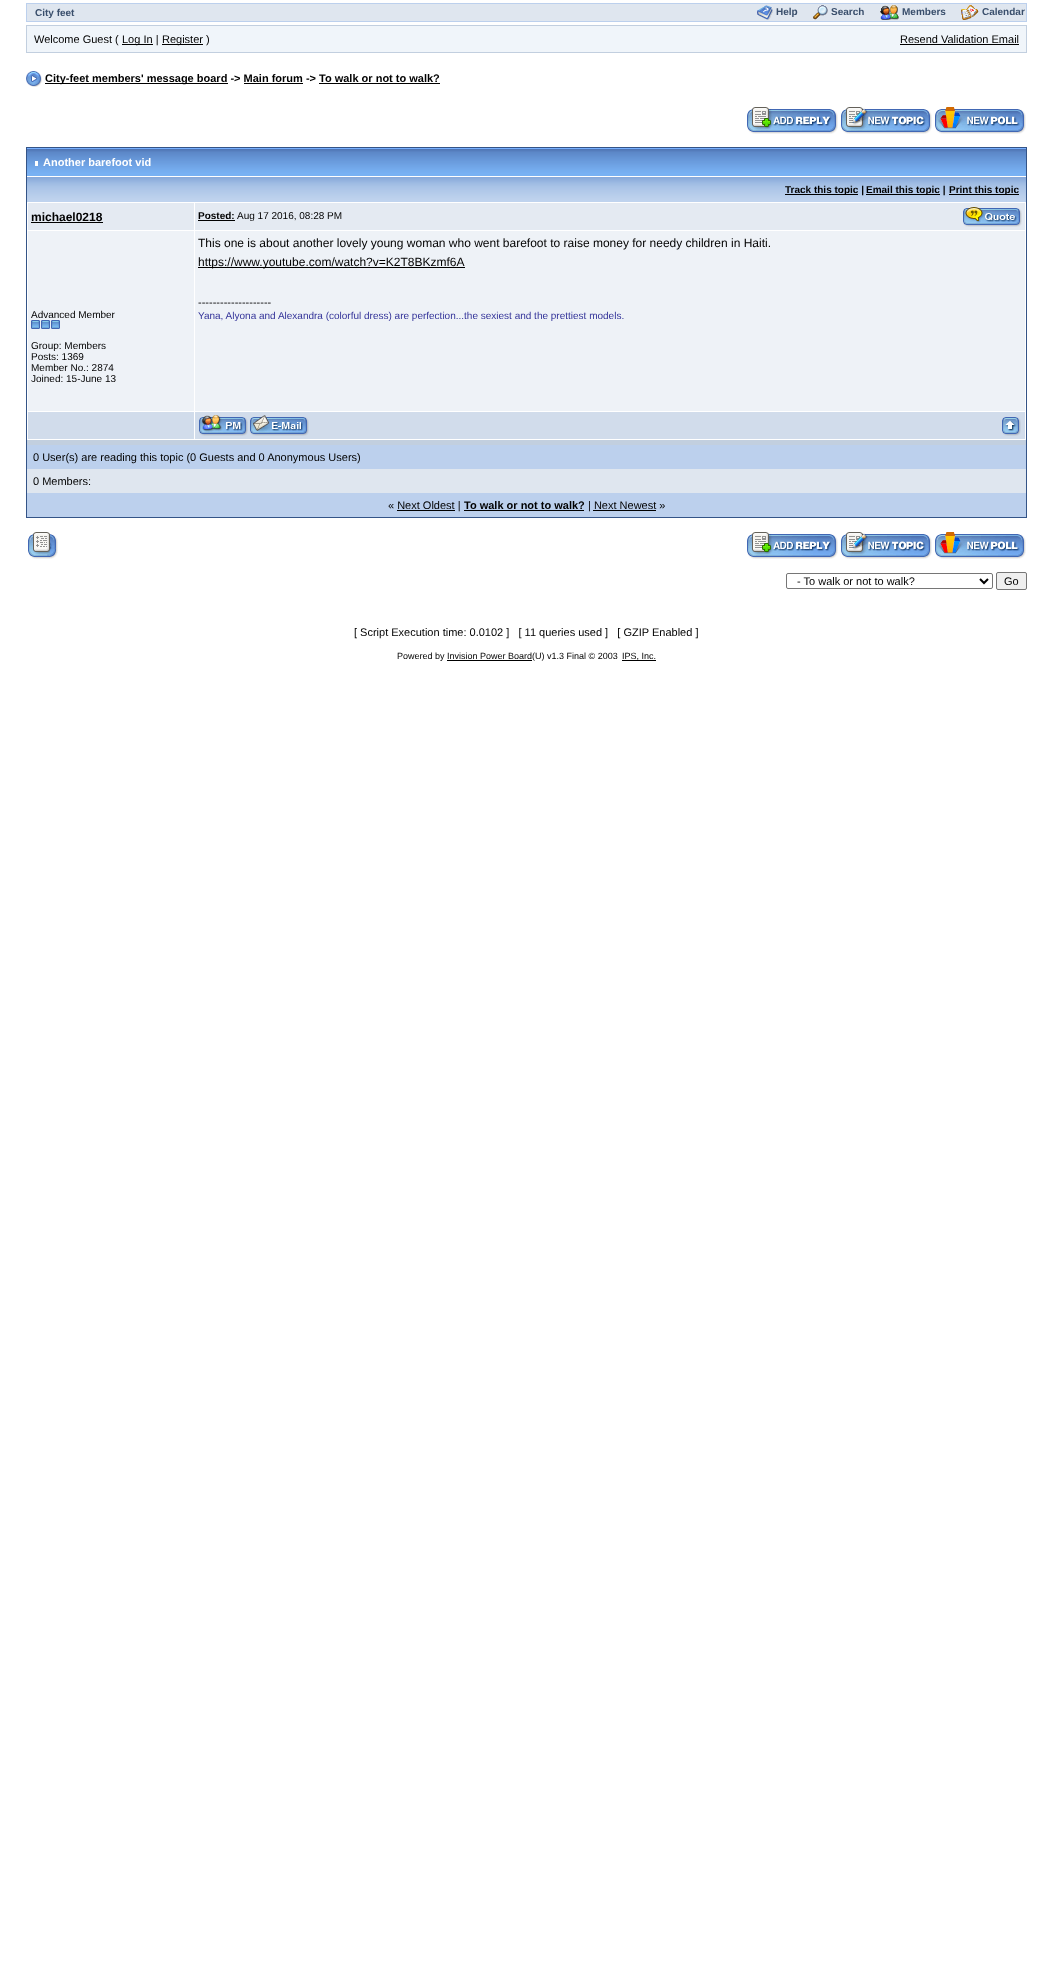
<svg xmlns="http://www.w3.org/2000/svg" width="1053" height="1966">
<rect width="100%" height="100%" fill="#fff"/>
<rect x="26.5" y="3.5" width="1000" height="18" fill="#dfe6ef" stroke="#bcd0ed"/>
<text x="35" y="16" style="font-family:Liberation Sans;font-size:10px;font-weight:bold;fill:#3a4f6c">City feet</text>
<image x="757" y="5" width="16" height="15" href="media/1.png"/>
<text x="776" y="15" style="font-family:Liberation Sans;font-size:10px;font-weight:bold;fill:#3a4f6c">Help</text>
<image x="813" y="5" width="15" height="15" href="media/2.png"/>
<text x="831" y="15" style="font-family:Liberation Sans;font-size:10px;font-weight:bold;fill:#3a4f6c">Search</text>
<image x="880" y="5" width="19" height="15" href="media/3.png"/>
<text x="902" y="15" style="font-family:Liberation Sans;font-size:10px;font-weight:bold;fill:#3a4f6c">Members</text>
<image x="961" y="5" width="18" height="15" href="media/4.png"/>
<text x="982" y="15" style="font-family:Liberation Sans;font-size:10px;font-weight:bold;fill:#3a4f6c">Calendar</text>
<rect x="26.5" y="25.5" width="1000" height="27" fill="#f0f5fa" stroke="#c2cfdf"/>
<text x="34" y="43" style="font-family:Liberation Sans;font-size:11px;fill:#000">Welcome Guest (</text>
<rect x="122" y="44" width="31" height="1" fill="#000"/>
<text x="122" y="43" style="font-family:Liberation Sans;font-size:11px;fill:#000">Log In |</text>
<rect x="162" y="44" width="41" height="1" fill="#000"/>
<text x="162" y="43" style="font-family:Liberation Sans;font-size:11px;fill:#000">Register )</text>
<text x="900" y="43" style="font-family:Liberation Sans;font-size:11px;fill:#000">Resend Validation Email</text>
<rect x="900" y="44" width="119" height="1" fill="#000"/>
<image x="26" y="71" width="16" height="16" href="media/5.png"/>
<rect x="45" y="83" width="183" height="1" fill="#000"/>
<text x="45" y="82" style="font-family:Liberation Sans;font-size:11px;font-weight:bold;fill:#000">City-feet members' message board -&gt; Main forum -&gt; To walk or not to walk?</text>
<rect x="244" y="83" width="59" height="1" fill="#000"/>
<rect x="319" y="83" width="121" height="1" fill="#000"/>
<image x="747" y="107" width="91" height="27" href="media/6.png"/>
<image x="841" y="107" width="91" height="27" href="media/7.png"/>
<image x="935" y="107" width="91" height="27" href="media/8.png"/>
<rect x="26.5" y="147.5" width="1000" height="370" fill="none" stroke="#345487"/>
<image x="27" y="148" width="999" height="28" href="media/9.png"/>
<rect x="35" y="161" width="3" height="5" fill="#fff"/>
<text x="43" y="166" style="font-family:Liberation Sans;font-size:11px;font-weight:bold;fill:#fff">Another barefoot vid</text>
<image x="27" y="177" width="999" height="25" href="media/10.png"/>
<rect x="785" y="194" width="73" height="1" fill="#000"/>
<text x="785" y="193" style="font-family:Liberation Sans;font-size:10px;font-weight:bold;fill:#000">Track this topic |</text>
<rect x="866" y="194" width="74" height="1" fill="#000"/>
<text x="866" y="193" style="font-family:Liberation Sans;font-size:10px;font-weight:bold;fill:#000">Email this topic |</text>
<rect x="949" y="194" width="70" height="1" fill="#000"/>
<text x="949" y="193" style="font-family:Liberation Sans;font-size:10px;font-weight:bold;fill:#000">Print this topic</text>
<rect x="28" y="203" width="166" height="27" fill="#e4eaf2"/>
<text x="31" y="221" style="font-family:Liberation Sans;font-size:12px;font-weight:bold;fill:#000">michael0218</text>
<rect x="31" y="222" width="72" height="1" fill="#000"/>
<rect x="195" y="203" width="830" height="27" fill="#e4eaf2"/>
<text x="198" y="219" style="font-family:Liberation Sans;font-size:10px;font-weight:bold;fill:#000">Posted:</text>
<text x="237" y="219" style="font-family:Liberation Sans;font-size:10px;fill:#000">Aug 17 2016, 08:28 PM</text>
<rect x="198" y="220" width="37" height="1" fill="#000"/>
<image x="963" y="207" width="59" height="20" href="media/11.png"/>
<rect x="195" y="231" width="830" height="180" fill="#eef2f7"/>
<text x="198" y="247" style="font-family:Liberation Sans;font-size:12px;fill:#000">This one is about another lovely young woman who went barefoot to raise money for needy children in Haiti.</text>
<rect x="198" y="267" width="267" height="1" fill="#000"/>
<text x="198" y="266" style="font-family:Liberation Sans;font-size:12px;fill:#000">https://www.youtube.com/watch?v=K2T8BKzmf6A</text>
<text x="198" y="306" style="font-family:Liberation Sans;font-size:11px;fill:#000">--------------------</text>
<text x="198" y="319" style="font-family:Liberation Sans;font-size:10px;fill:#339">Yana, Alyona and Alexandra (colorful dress) are perfection...the sexiest and the prettiest models.</text>
<rect x="28" y="231" width="166" height="180" fill="#eef2f7"/>
<text x="31" y="318" style="font-family:Liberation Sans;font-size:10px;fill:#000">Advanced Member</text>
<image x="31" y="320" width="9" height="9" href="media/12.png"/>
<image x="41" y="320" width="9" height="9" href="media/12.png"/>
<image x="51" y="320" width="9" height="9" href="media/12.png"/>
<text x="31" y="349" style="font-family:Liberation Sans;font-size:10px;fill:#000">Group: Members</text>
<text x="31" y="360" style="font-family:Liberation Sans;font-size:10px;fill:#000">Posts: 1369</text>
<text x="31" y="371" style="font-family:Liberation Sans;font-size:10px;fill:#000">Member No.: 2874</text>
<text x="31" y="382" style="font-family:Liberation Sans;font-size:10px;fill:#000">Joined: 15-June 13</text>
<rect x="28" y="412" width="166" height="27" fill="#d1dceb"/>
<rect x="195" y="412" width="830" height="27" fill="#d1dceb"/>
<image x="199" y="415" width="49" height="21" href="media/13.png"/>
<image x="250" y="415" width="59" height="21" href="media/14.png"/>
<image x="1002" y="417" width="19" height="19" href="media/15.png"/>
<rect x="27" y="440" width="999" height="5" fill="#c2cfdf"/>
<rect x="27" y="445" width="999" height="24" fill="#bcd0ed"/>
<text x="33" y="461" style="font-family:Liberation Sans;font-size:11px;fill:#000">0 User(s) are reading this topic (0 Guests and 0 Anonymous Users)</text>
<rect x="27" y="469" width="999" height="24" fill="#dfe6ef"/>
<text x="33" y="485" style="font-family:Liberation Sans;font-size:11px;fill:#000">0 Members:</text>
<rect x="27" y="493" width="999" height="24" fill="#bcd0ed"/>
<text x="388" y="509" style="font-family:Liberation Sans;font-size:11px;fill:#000">« Next Oldest |</text>
<text x="464" y="509" style="font-family:Liberation Sans;font-size:11px;font-weight:bold;fill:#000">To walk or not to walk?</text>
<rect x="464" y="510" width="120" height="1" fill="#000"/>
<text x="588" y="509" style="font-family:Liberation Sans;font-size:11px;fill:#000">| Next Newest »</text>
<rect x="397" y="510" width="58" height="1" fill="#000"/>
<rect x="593" y="510" width="63" height="1" fill="#000"/>
<image x="28" y="532" width="30" height="27" href="media/16.png"/>
<image x="747" y="532" width="91" height="27" href="media/6.png"/>
<image x="841" y="532" width="91" height="27" href="media/7.png"/>
<image x="935" y="532" width="91" height="27" href="media/8.png"/>
<rect x="786.5" y="573.5" width="206" height="15" rx="1.5" fill="none" stroke="#767676"/>
<path d="M980 579l4 4l4-4" fill="none" stroke="#000" stroke-width="2"/>
<text x="797" y="585" style="font-family:Liberation Sans;font-size:11px;fill:#000">- To walk or not to walk?</text>
<rect x="996.5" y="572.5" width="30" height="17" rx="1.5" fill="#efefef" stroke="#767676"/>
<text x="1004" y="585" style="font-family:Liberation Sans;font-size:11px;fill:#000">Go</text>
<text x="354" y="636" style="font-family:Liberation Sans;font-size:11px;fill:#000" xml:space="preserve">[ Script Execution time: 0.0102 ]   [ 11 queries used ]   [ GZIP Enabled ]</text>
<text x="397" y="659" style="font-family:Liberation Sans;font-size:9px;fill:#000">Powered by Invision Power Board(U) v1.3 Final © 2003</text>
<rect x="622" y="660" width="34" height="1" fill="#000"/>
<text x="622" y="659" style="font-family:Liberation Sans;font-size:9px;fill:#000">IPS, Inc.</text>
<rect x="447" y="660" width="85" height="1" fill="#000"/>
</svg>
